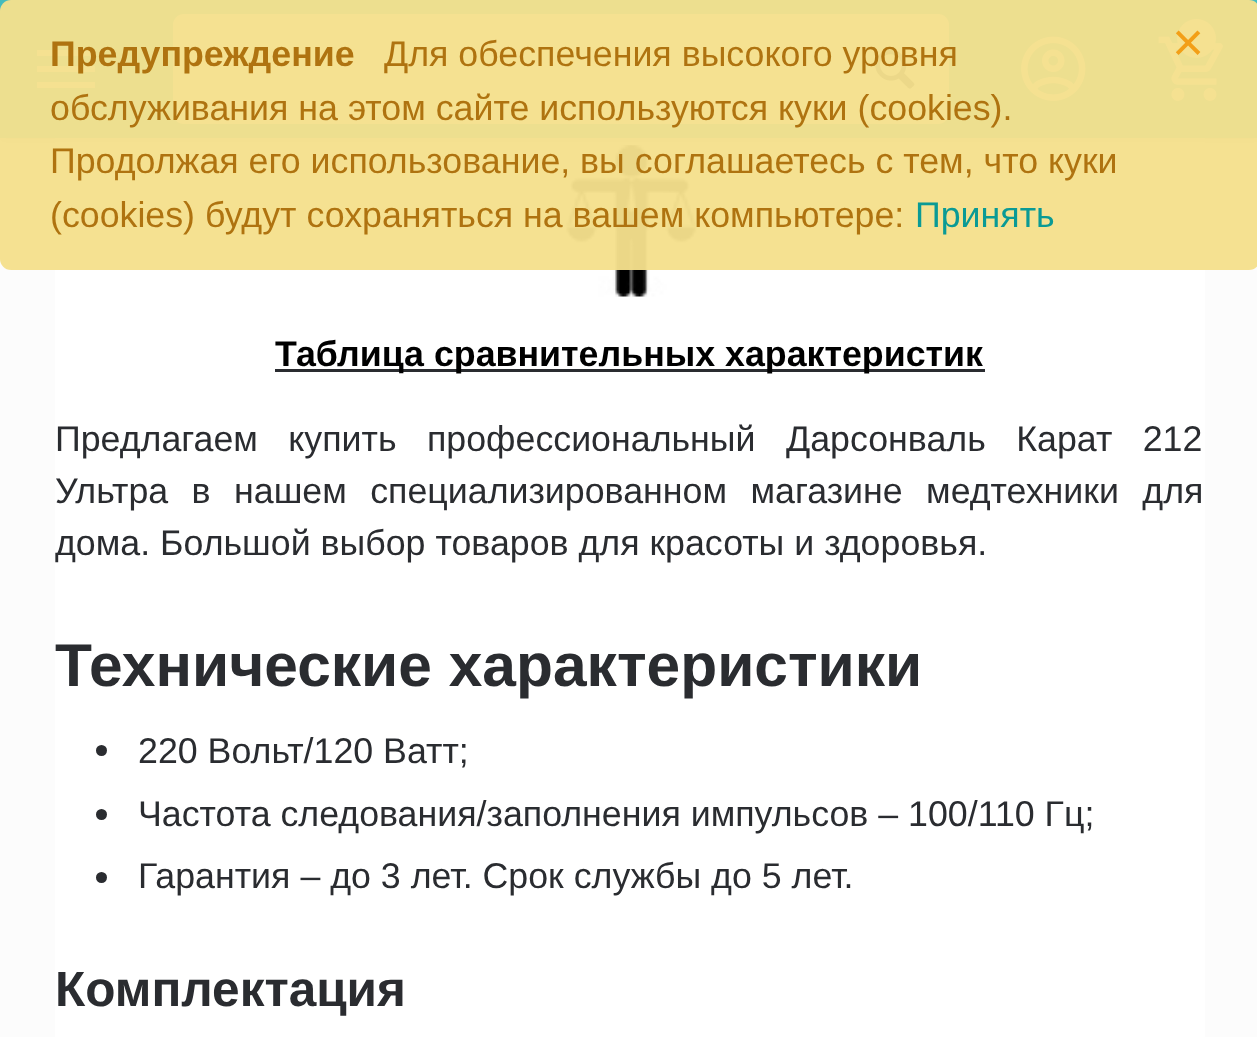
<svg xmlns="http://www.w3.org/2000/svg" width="1257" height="1037">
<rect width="100%" height="100%" fill="#fcfcfc"/>
<rect x="55" y="138" width="1150" height="899" fill="#fff"/>
<image x="565" y="145" width="132" height="152" href="media/4.png"/>
<rect y="8" width="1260" height="138" fill="#0000001a" filter="blur(4px)"/>
<rect y="3" width="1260" height="137" fill="#0000001a" filter="blur(1.5px)"/>
<rect width="1257" height="138" fill="#44bbbd"/>
<path d="M37 88h58v-6h-58zm0-16h58v-6h-58zm0-22v6h58v-6z" fill="#fff"/>
<rect x="173" y="14" width="776" height="110" rx="11" fill="#fcfcfc"/>
<image x="875" y="49" width="40" height="40" href="media/1.png"/>
<image x="1021" y="36" width="65" height="65" href="media/2.png"/>
<image x="1158" y="36" width="65" height="65" href="media/3.png"/>
<circle cx="1196.5" cy="38.5" r="19.5" fill="#eef3f4"/>
<rect width="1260" height="270" rx="11" fill="#f5e08cf5"/>
<text x="50" y="66" style="font-family:Liberation Sans;font-size:35.75px;font-weight:bold;fill:#af7310">Предупреждение</text>
<text x="384" y="66" style="font-family:Liberation Sans;font-size:35.75px;fill:#af7310">Для обеспечения высокого уровня</text>
<text x="1172" y="61" style="font-family:Liberation Sans;font-size:55px;fill:#f39f17">×</text>
<text x="50" y="120" style="font-family:Liberation Sans;font-size:35.75px;fill:#af7310">обслуживания на этом сайте используются куки (cookies).</text>
<text x="50" y="173" style="font-family:Liberation Sans;font-size:35.75px;fill:#af7310">Продолжая его использование, вы соглашаетесь с тем, что куки</text>
<text x="50" y="227" style="font-family:Liberation Sans;font-size:35.75px;fill:#af7310">(cookies) будут сохраняться на вашем компьютере:</text>
<text x="915" y="227" style="font-family:Liberation Sans;font-size:35.75px;fill:#0a9a95">Принять</text>
<rect x="275" y="369" width="710" height="3" fill="#2a2c30"/>
<text x="275" y="366" style="font-family:Liberation Sans;font-size:35.75px;font-weight:bold;fill:#000">Таблица сравнительных характеристик</text>
<text x="55" y="451" word-spacing="20.5" style="font-family:Liberation Sans;font-size:35.75px;fill:#2a2c30">Предлагаем купить профессиональный Дарсонваль Карат 212</text>
<text x="55" y="503" word-spacing="13.5" style="font-family:Liberation Sans;font-size:35.75px;fill:#2a2c30">Ультра в нашем специализированном магазине медтехники для</text>
<text x="55" y="555" style="font-family:Liberation Sans;font-size:35.75px;fill:#2a2c30">дома. Большой выбор товаров для красоты и здоровья.</text>
<text x="55" y="686" style="font-family:Liberation Sans;font-size:60.5px;font-weight:bold;fill:#2a2c30">Технические характеристики</text>
<circle cx="101.5" cy="750.5" r="5.5" fill="#2a2c30"/>
<text x="138" y="763" style="font-family:Liberation Sans;font-size:35.75px;fill:#2a2c30">220 Вольт/120 Ватт;</text>
<circle cx="101.5" cy="814.5" r="5.5" fill="#2a2c30"/>
<text x="138" y="826" style="font-family:Liberation Sans;font-size:35.75px;fill:#2a2c30">Частота следования/заполнения импульсов – 100/110 Гц;</text>
<circle cx="101.5" cy="877.5" r="5.5" fill="#2a2c30"/>
<text x="138" y="888" style="font-family:Liberation Sans;font-size:35.75px;fill:#2a2c30">Гарантия – до 3 лет. Срок службы до 5 лет.</text>
<text x="55" y="1006" style="font-family:Liberation Sans;font-size:49.5px;font-weight:bold;fill:#2a2c30">Комплектация</text>
</svg>
